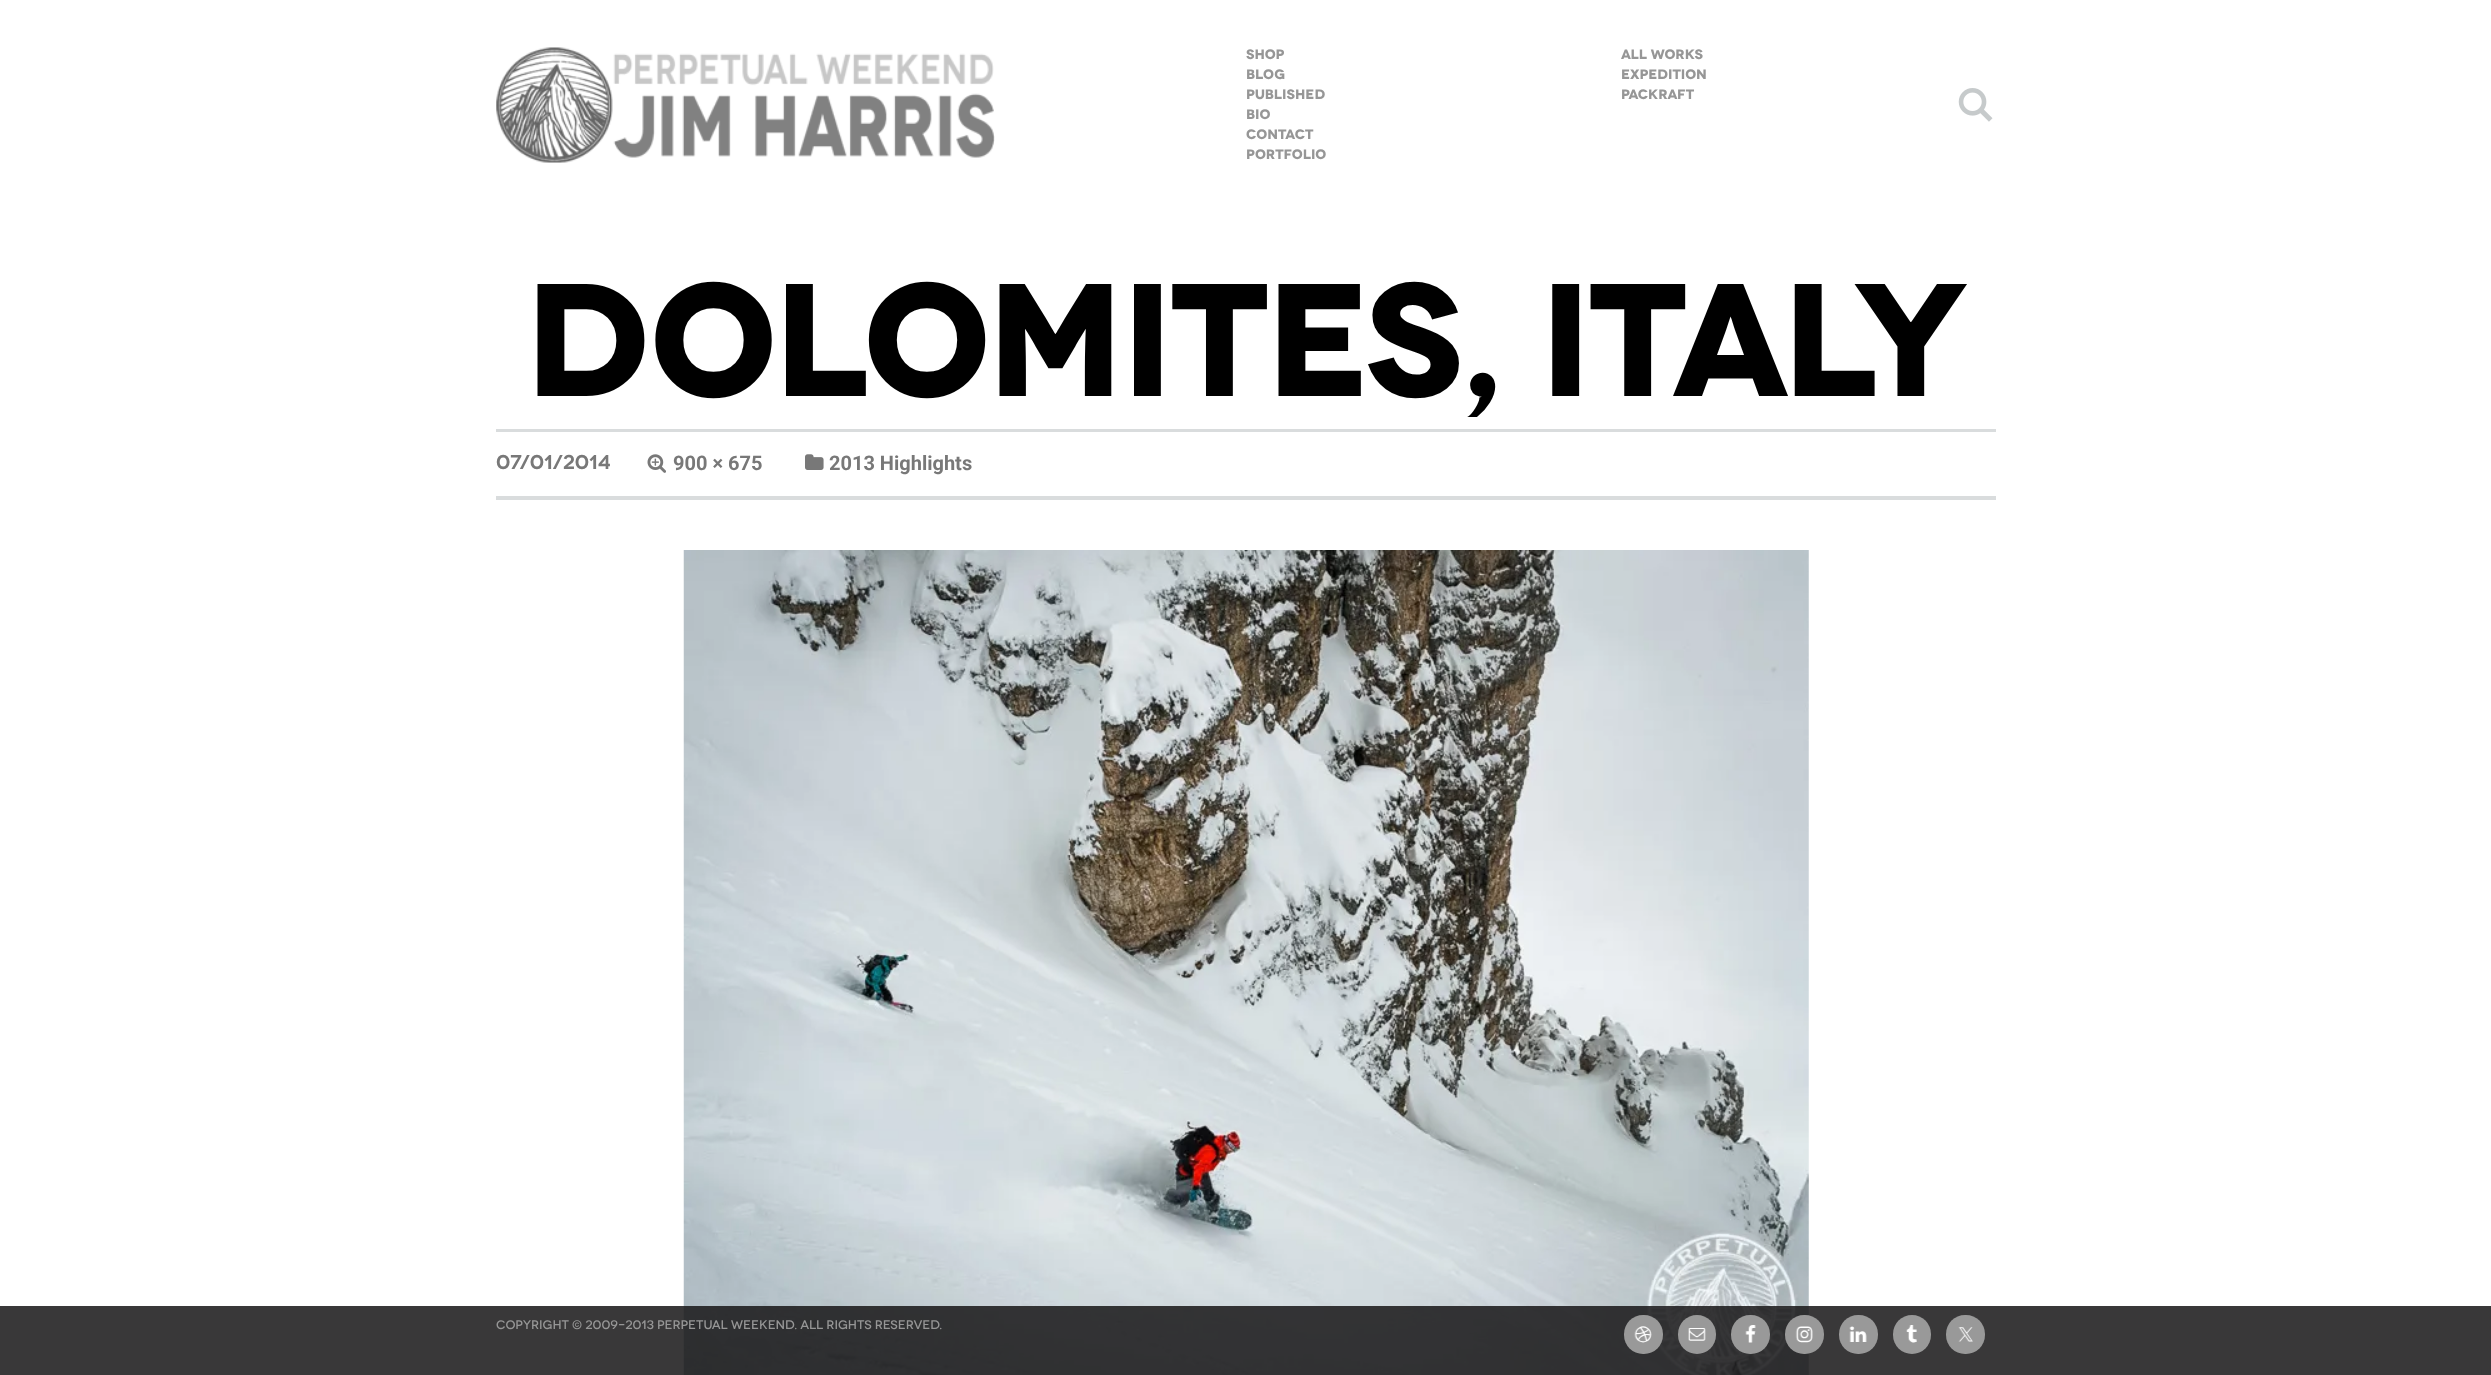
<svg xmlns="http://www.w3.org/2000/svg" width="2491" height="1375">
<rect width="100%" height="100%" fill="#fff"/>
<image x="496" y="47" width="499" height="116" href="media/1.png"/>
<text x="1246" y="59" style="font-family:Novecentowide;font-size:13.75px;font-weight:bold;fill:#969696">SHOP</text>
<text x="1246" y="79" style="font-family:Novecentowide;font-size:13.75px;font-weight:bold;fill:#969696">BLOG</text>
<text x="1246" y="99" style="font-family:Novecentowide;font-size:13.75px;font-weight:bold;fill:#969696">PUBLISHED</text>
<text x="1246" y="119" style="font-family:Novecentowide;font-size:13.75px;font-weight:bold;fill:#969696">BIO</text>
<text x="1246" y="139" style="font-family:Novecentowide;font-size:13.75px;font-weight:bold;fill:#969696">CONTACT</text>
<text x="1246" y="159" style="font-family:Novecentowide;font-size:13.75px;font-weight:bold;fill:#969696">PORTFOLIO</text>
<text x="1621" y="59" style="font-family:Novecentowide;font-size:13.75px;font-weight:bold;fill:#969696">All Works</text>
<text x="1621" y="79" style="font-family:Novecentowide;font-size:13.75px;font-weight:bold;fill:#969696">Expedition</text>
<text x="1621" y="99" style="font-family:Novecentowide;font-size:13.75px;font-weight:bold;fill:#969696">packraft</text>
<image x="1958" y="88" width="35" height="34" href="media/2.png"/>
<rect x="496" y="429" width="1500" height="3" fill="#d9dcdd"/>
<text x="525" y="396" style="font-family:Novecentowide;font-size:160px;font-weight:bold;letter-spacing:-2.5px;fill:#000">DOLOMITES, ITALY</text>
<rect x="496" y="496" width="1500" height="4" fill="#d9dcdd"/>
<text x="496" y="469" style="font-family:Novecentowide;font-size:20px;font-weight:600;fill:#787878">07/01/2014</text>
<image x="647" y="454" width="19" height="19" href="media/3.png"/>
<text x="673" y="470" style="font-family:Roboto;font-size:20px;font-weight:bold;fill:#787878">900 × 675</text>
<image x="805" y="454" width="19" height="16" href="media/4.png"/>
<text x="829" y="470" style="font-family:Roboto;font-size:20px;font-weight:bold;fill:#787878">2013 Highlights</text>
<image x="683" y="550" width="1126" height="825" href="media/5.png"/>
<rect y="1306" width="2491" height="69" fill="#191718db"/>
<text x="496" y="1329" style="font-family:'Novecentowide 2';font-size:12.4px;font-weight:600;fill:#969696">COPYRIGHT © 2009–2013 PERPETUAL WEEKEND. ALL RIGHTS RESERVED.</text>
<rect x="1624" y="1315" width="39" height="39" rx="19" fill="#999"/>
<image x="1634" y="1326" width="18" height="17" href="media/6.png"/>
<rect x="1678" y="1315" width="38" height="39" rx="19" fill="#999"/>
<image x="1688" y="1328" width="18" height="13" href="media/7.png"/>
<rect x="1731" y="1315" width="39" height="39" rx="19" fill="#999"/>
<image x="1745" y="1325" width="11" height="18" href="media/8.png"/>
<rect x="1785" y="1315" width="39" height="39" rx="19" fill="#999"/>
<image x="1795" y="1326" width="18" height="17" href="media/9.png"/>
<rect x="1839" y="1315" width="39" height="39" rx="19" fill="#999"/>
<image x="1849" y="1326" width="18" height="16" href="media/10.png"/>
<rect x="1893" y="1315" width="38" height="39" rx="19" fill="#999"/>
<image x="1906" y="1325" width="11" height="18" href="media/11.png"/>
<rect x="1946" y="1315" width="39" height="39" rx="19" fill="#999"/>
<image x="1958" y="1327" width="15" height="15" href="media/12.png"/>
</svg>
